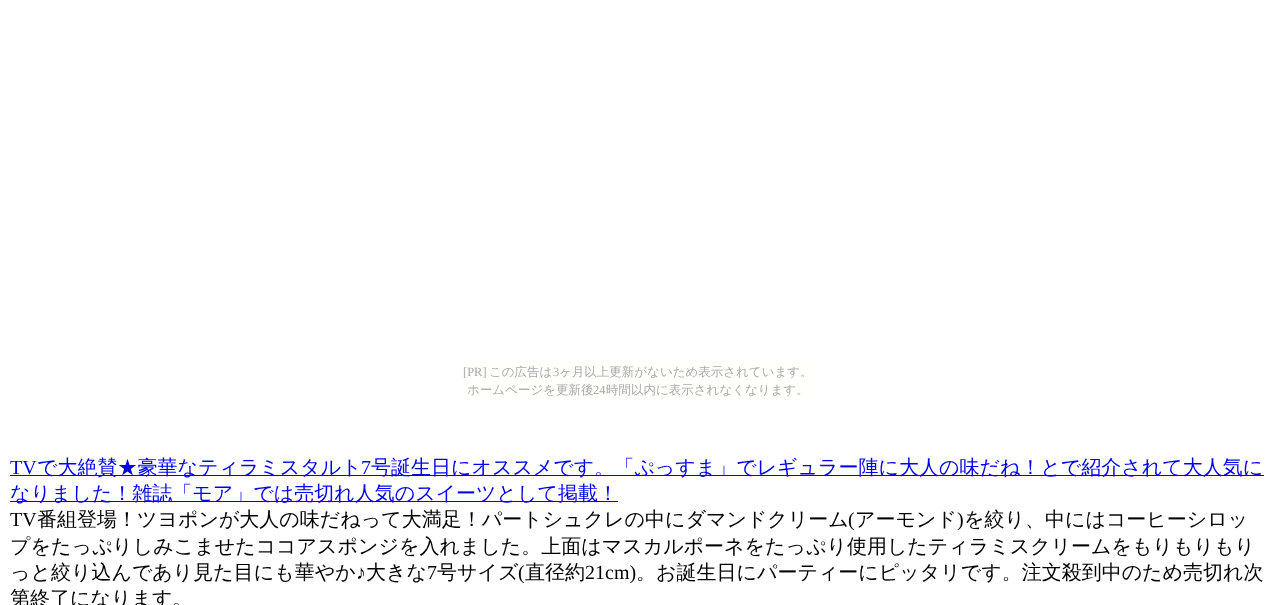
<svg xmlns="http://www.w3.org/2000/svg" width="1275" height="605">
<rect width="100%" height="100%" fill="#fff"/>
<rect x="459" y="360" width="357" height="43" fill="#fffffc"/>
<text x="463" y="376" style="font-family:Liberation Serif;font-size:12.5px;fill:#aaa">[PR]</text>
<text x="489" y="376" style="font-family:WenQuanYi Zen Hei;font-size:12.5px;font-weight:500;fill:#aaa">この広告は</text>
<text x="553" y="376" style="font-family:Liberation Serif;font-size:12.5px;fill:#aaa">3</text>
<text x="559" y="376" style="font-family:WenQuanYi Zen Hei;font-size:12.5px;font-weight:500;fill:#aaa">ヶ月以上更新がないため表示されています。</text>
<text x="467" y="394" style="font-family:WenQuanYi Zen Hei;font-size:12.5px;font-weight:500;fill:#aaa">ホームページを更新後</text>
<text x="593" y="394" style="font-family:Liberation Serif;font-size:12.5px;fill:#aaa">24</text>
<text x="606" y="394" style="font-family:WenQuanYi Zen Hei;font-size:12.5px;font-weight:500;fill:#aaa">時間以内に表示されなくなります。</text>
<text x="10" y="474" style="font-family:Liberation Serif;font-size:20px;fill:#00e">TV</text>
<rect x="10" y="475" width="1254" height="1" fill="#00e"/>
<text x="37" y="474" style="font-family:WenQuanYi Zen Hei;font-size:20px;font-weight:500;fill:#00e">で大絶賛★豪華なティラミスタルト</text>
<text x="361" y="474" style="font-family:Liberation Serif;font-size:20px;fill:#00e">7</text>
<text x="371" y="474" style="font-family:WenQuanYi Zen Hei;font-size:20px;font-weight:500;fill:#00e">号誕生日にオススメです。「ぷっすま」でレギュラー陣に大人の味だね！とで紹介されて大人気に</text>
<rect x="10" y="501" width="608" height="1" fill="#00e"/>
<text x="10" y="500" style="font-family:WenQuanYi Zen Hei;font-size:20px;font-weight:500;fill:#00e">なりました！雑誌「モア」では売切れ人気のスイーツとして掲載！</text>
<text x="10" y="526" style="font-family:Liberation Serif;font-size:20px;fill:#000">TV</text>
<text x="37" y="526" style="font-family:WenQuanYi Zen Hei;font-size:20px;font-weight:500;fill:#000">番組登場！ツヨポンが大人の味だねって大満足！パートシュクレの中にダマンドクリーム</text>
<text x="848" y="526" style="font-family:Liberation Serif;font-size:20px;fill:#000">(</text>
<text x="855" y="526" style="font-family:WenQuanYi Zen Hei;font-size:20px;font-weight:500;fill:#000">アーモンド</text>
<text x="957" y="526" style="font-family:Liberation Serif;font-size:20px;fill:#000">)</text>
<text x="964" y="526" style="font-family:WenQuanYi Zen Hei;font-size:20px;font-weight:500;fill:#000">を絞り、中にはコーヒーシロッ</text>
<text x="10" y="553" style="font-family:WenQuanYi Zen Hei;font-size:20px;font-weight:500;fill:#000">プをたっぷりしみこませたココアスポンジを入れました。上面はマスカルポーネをたっぷり使用したティラミスクリームをもりもりもり</text>
<text x="10" y="579" style="font-family:WenQuanYi Zen Hei;font-size:20px;font-weight:500;fill:#000">っと絞り込んであり見た目にも華やか</text>
<text x="356" y="579" style="font-family:Liberation Serif;font-size:20px;fill:#000">♪</text>
<text x="366" y="579" style="font-family:WenQuanYi Zen Hei;font-size:20px;font-weight:500;fill:#000">大きな</text>
<text x="427" y="579" style="font-family:Liberation Serif;font-size:20px;fill:#000">7</text>
<text x="437" y="579" style="font-family:WenQuanYi Zen Hei;font-size:20px;font-weight:500;fill:#000">号サイズ</text>
<text x="518" y="579" style="font-family:Liberation Serif;font-size:20px;fill:#000">(</text>
<text x="525" y="579" style="font-family:WenQuanYi Zen Hei;font-size:20px;font-weight:500;fill:#000">直径約</text>
<text x="585" y="579" style="font-family:Liberation Serif;font-size:20px;fill:#000">21cm)</text>
<text x="636" y="579" style="font-family:WenQuanYi Zen Hei;font-size:20px;font-weight:500;fill:#000">。お誕生日にパーティーにピッタリです。注文殺到中のため売切れ次</text>
<text x="10" y="605" style="font-family:WenQuanYi Zen Hei;font-size:20px;font-weight:500;fill:#000">第終了になります。</text>
</svg>
